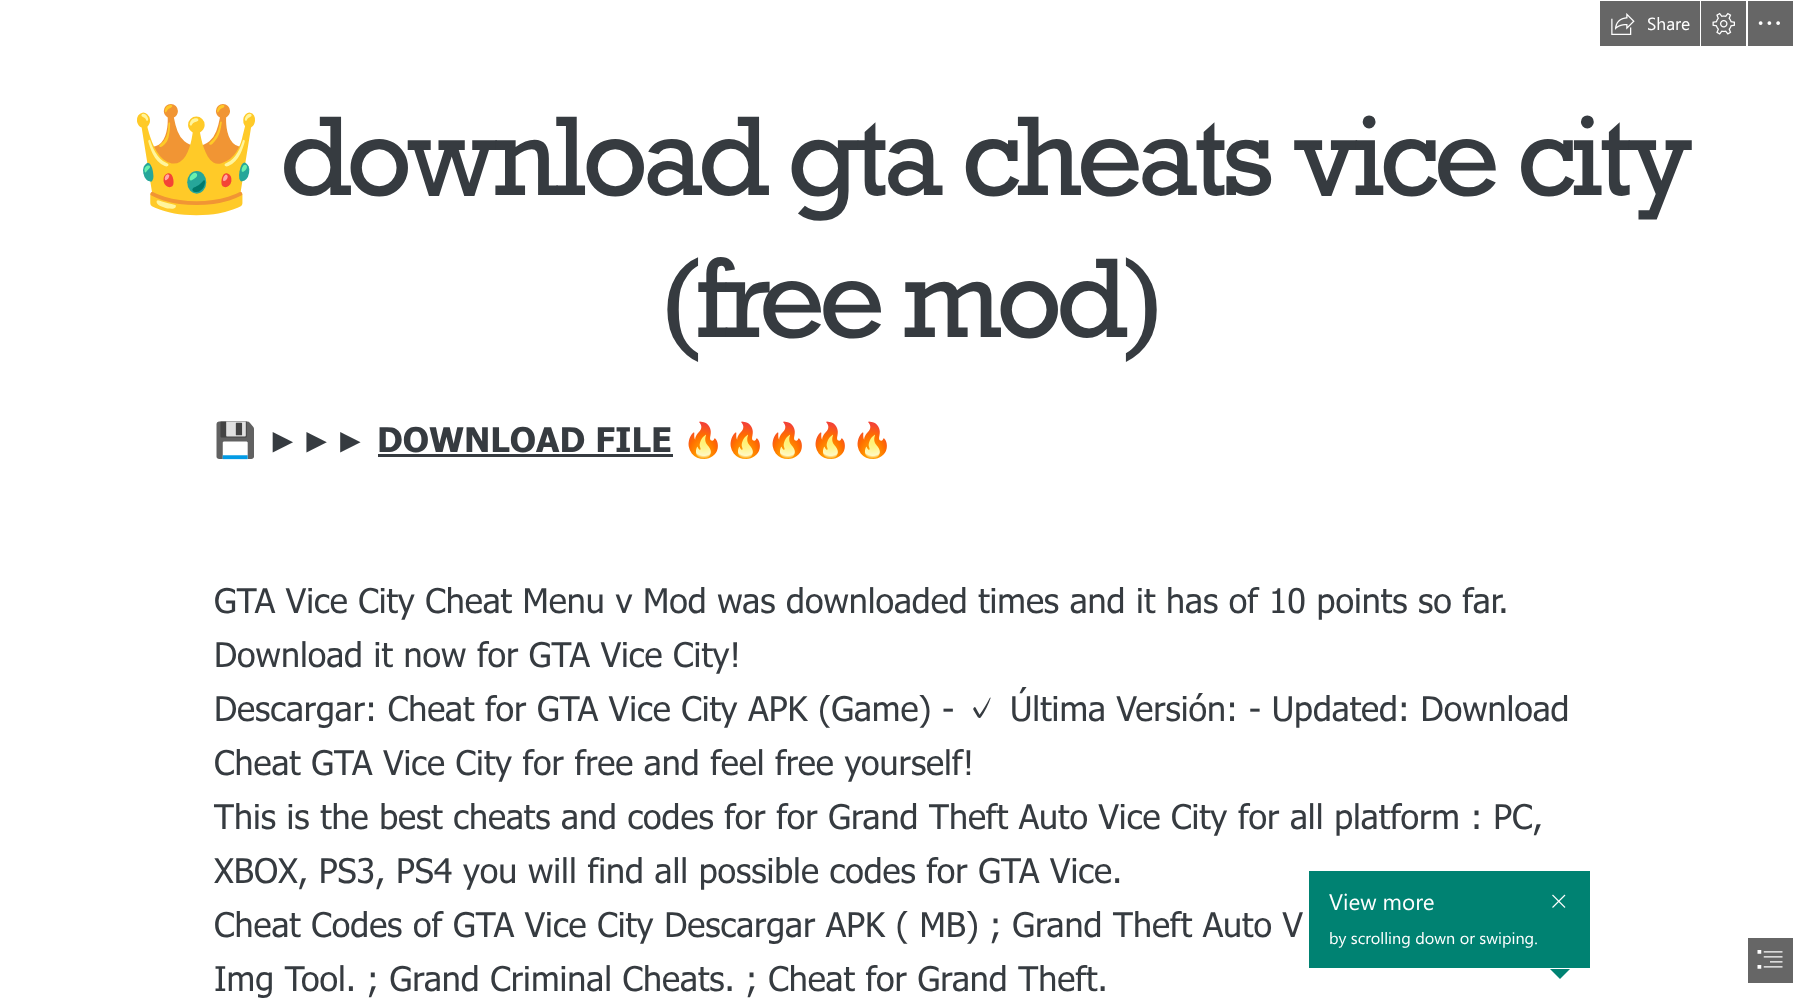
<svg xmlns="http://www.w3.org/2000/svg" width="1817" height="1008">
<rect width="100%" height="100%" fill="#fff"/>
<rect x="1600" y="1" width="100" height="45" fill="#666"/>
<image x="1611" y="13" width="24" height="22" href="media/1.png"/>
<text x="1647" y="30" style="font-family:Segoe UI;font-size:17.5px;fill:#fff">Share</text>
<rect x="1701" y="1" width="45" height="45" fill="#666"/>
<image x="1712" y="12" width="23" height="23" href="media/2.png"/>
<rect x="1748" y="1" width="45" height="45" fill="#666"/>
<image x="1758" y="21" width="22" height="4" href="media/3.png"/>
<text x="130" y="195" style="font-family:Noto Color Emoji;font-size:106.5px;letter-spacing:-5.85px;fill:#363b40">👑</text>
<text x="280" y="195" style="font-family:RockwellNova;font-size:106.5px;letter-spacing:-5.85px;fill:#363b40">download gta cheats vice city</text>
<text x="658" y="337" style="font-family:RockwellNova;font-size:106.5px;letter-spacing:-5.85px;fill:#363b40">(free mod)</text>
<text x="214" y="452" style="font-family:Noto Color Emoji;font-size:34.1px;font-weight:bold;fill:#363b40">💾</text>
<text x="266" y="452" style="font-family:Liberation Sans;font-size:34.1px;font-weight:bold;fill:#363b40">►►►</text>
<text x="377" y="452" style="font-family:Tahoma;font-size:34.1px;font-weight:bold;fill:#363b40">DOWNLOAD FILE</text>
<rect x="378" y="454" width="295" height="3" fill="#363b40"/>
<text x="682" y="452" style="font-family:Noto Color Emoji;font-size:34.1px;font-weight:bold;fill:#363b40">🔥🔥🔥🔥🔥</text>
<text x="214" y="613" style="font-family:Tahoma;font-size:34.1px;fill:#363b40">GTA Vice City Cheat Menu v Mod was downloaded times and it has of 10 points so far.</text>
<text x="214" y="667" style="font-family:Tahoma;font-size:34.1px;fill:#363b40">Download it now for GTA Vice City!</text>
<text x="214" y="721" style="font-family:Tahoma;font-size:34.1px;fill:#363b40">Descargar: Cheat for GTA Vice City APK (Game) -</text>
<text x="965" y="721" style="font-family:'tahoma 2';font-size:34.1px;fill:#363b40">✓</text>
<text x="1010" y="721" style="font-family:Tahoma;font-size:34.1px;fill:#363b40">Última Versión: - Updated: Download</text>
<text x="214" y="775" style="font-family:Tahoma;font-size:34.1px;fill:#363b40">Cheat GTA Vice City for free and feel free yourself!</text>
<text x="214" y="829" style="font-family:Tahoma;font-size:34.1px;fill:#363b40">This is the best cheats and codes for for Grand Theft Auto Vice City for all platform : PC,</text>
<text x="214" y="883" style="font-family:Tahoma;font-size:34.1px;fill:#363b40">XBOX, PS3, PS4 you will find all possible codes for GTA Vice.</text>
<text x="214" y="937" style="font-family:Tahoma;font-size:34.1px;fill:#363b40">Cheat Codes of GTA Vice City Descargar APK ( MB) ; Grand Theft Auto V</text>
<text x="214" y="991" style="font-family:Tahoma;font-size:34.1px;fill:#363b40">Img Tool. ; Grand Criminal Cheats. ; Cheat for Grand Theft.</text>
<rect x="1309" y="871" width="281" height="97" fill="#008272"/>
<text x="1329" y="910" style="font-family:Segoe UI;font-size:22.5px;fill:#fff">View more</text>
<text x="1329" y="944" style="font-family:Segoe UI;font-size:16.25px;fill:#fff">by scrolling down or swiping.</text>
<image x="1552" y="894" width="14" height="14" href="media/4.png"/>
<path d="M1550 969h20l-10 10z" fill="#008272"/>
<rect x="1748" y="938" width="45" height="45" fill="#666"/>
<image x="1757" y="950" width="26" height="19" href="media/5.png"/>
</svg>
